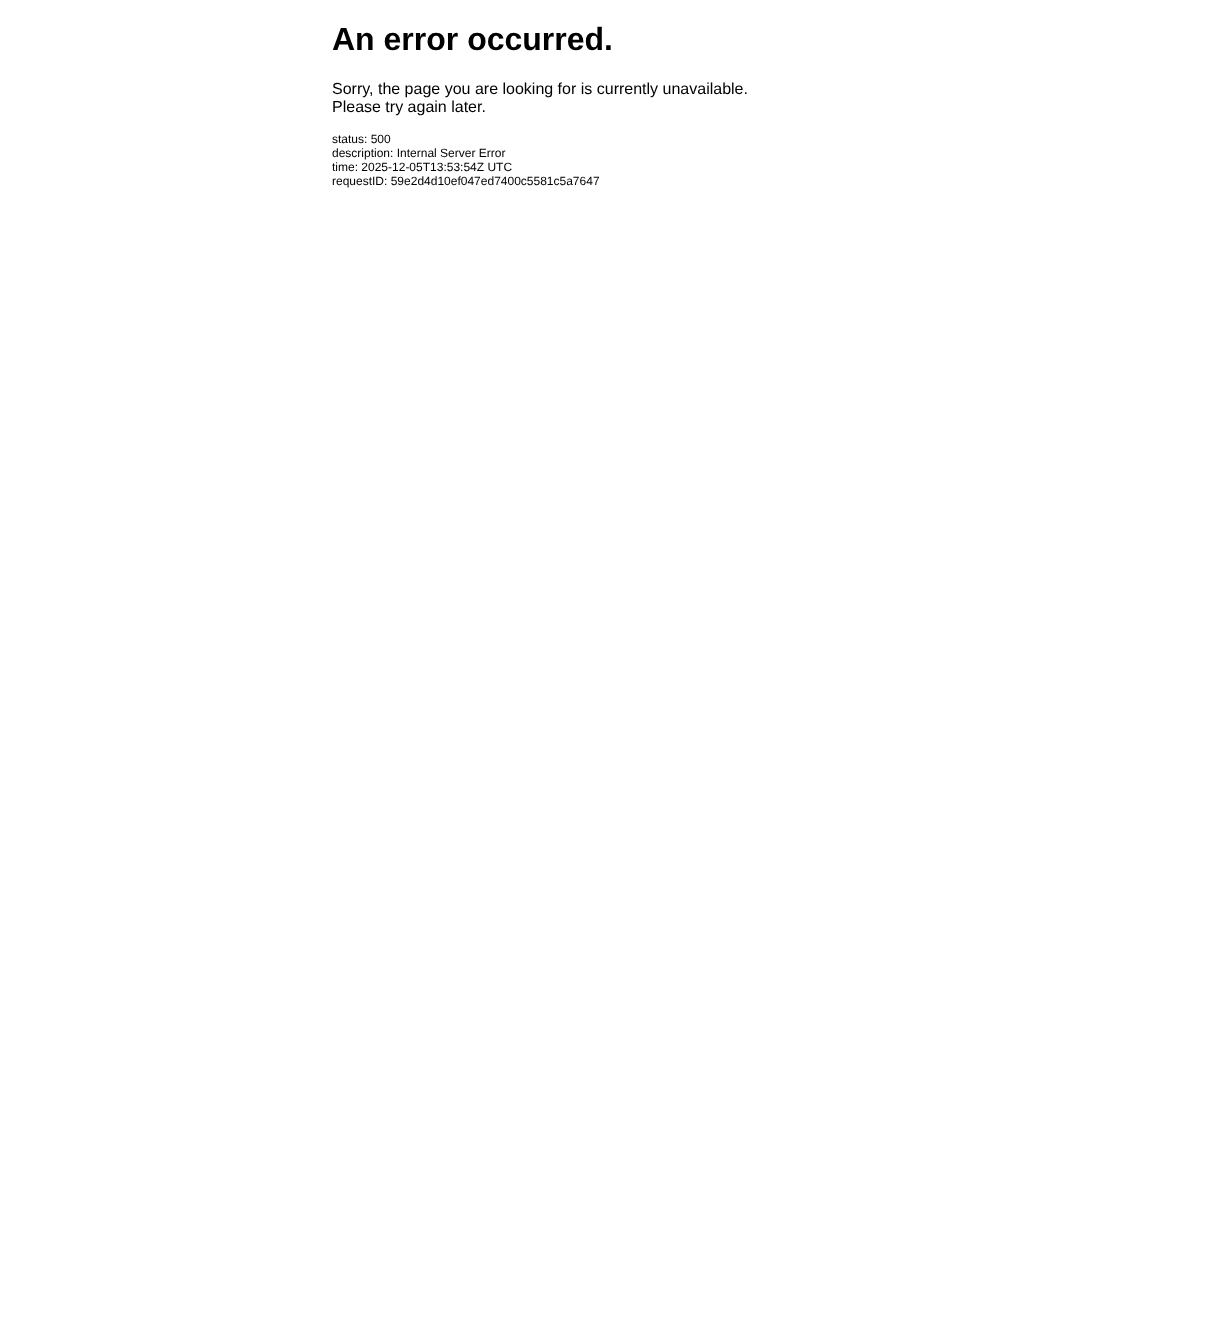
<svg xmlns="http://www.w3.org/2000/svg" width="1224" height="1340">
<rect width="100%" height="100%" fill="#fff"/>
<text x="332" y="50" style="font-family:Liberation Sans;font-size:32px;font-weight:bold;fill:#000">An error occurred.</text>
<text x="332" y="94" style="font-family:Liberation Sans;font-size:16px;fill:#000">Sorry, the page you are looking for is currently unavailable.</text>
<text x="332" y="112" style="font-family:Liberation Sans;font-size:16px;fill:#000">Please try again later.</text>
<text x="332" y="143" style="font-family:Liberation Sans;font-size:12px;fill:#000">status: 500</text>
<text x="332" y="157" style="font-family:Liberation Sans;font-size:12px;fill:#000">description: Internal Server Error</text>
<text x="332" y="171" style="font-family:Liberation Sans;font-size:12px;fill:#000">time: 2025-12-05T13:53:54Z UTC</text>
<text x="332" y="185" style="font-family:Liberation Sans;font-size:12px;fill:#000">requestID: 59e2d4d10ef047ed7400c5581c5a7647</text>
</svg>
